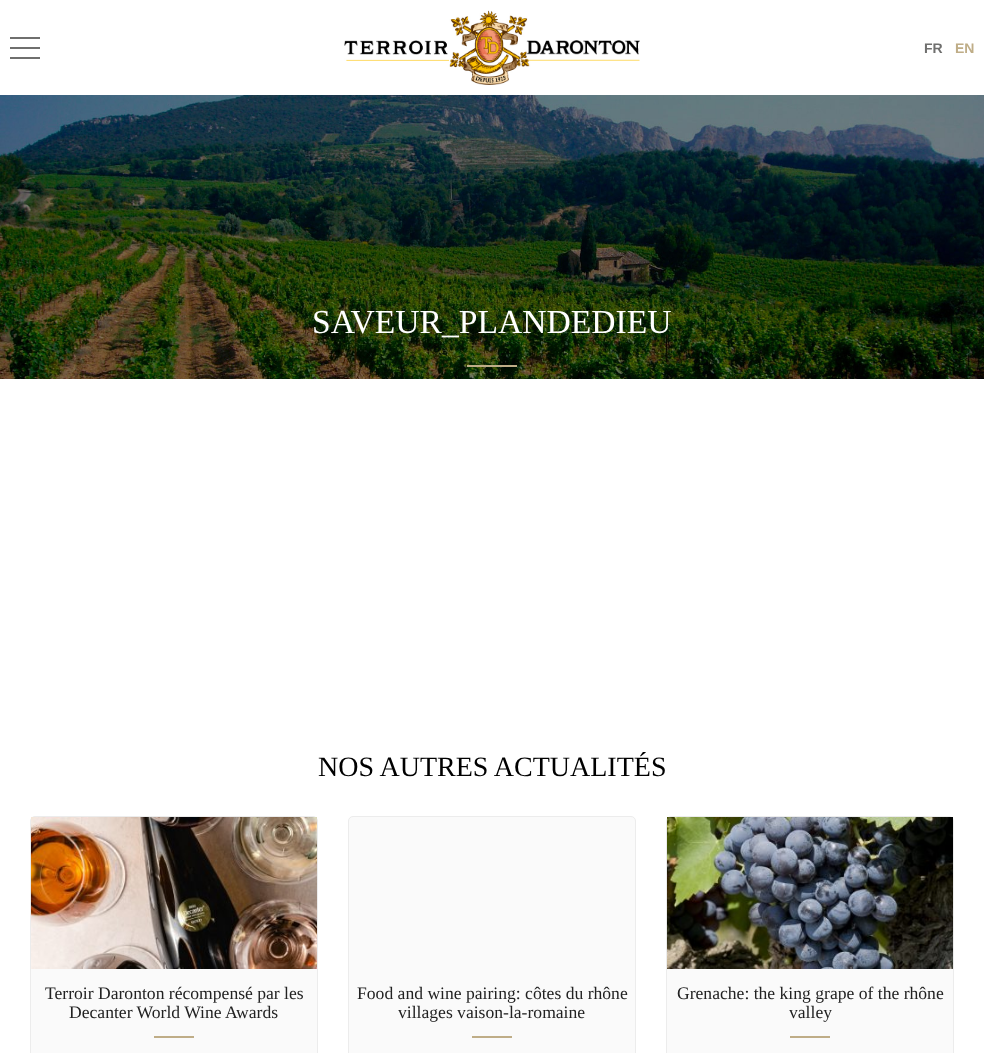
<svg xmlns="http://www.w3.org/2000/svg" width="984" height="1053">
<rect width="100%" height="100%" fill="#fff"/>
<rect x="10" y="37" width="30" height="2" fill="#6f6f6e"/>
<rect x="10" y="47" width="30" height="2" fill="#6f6f6e"/>
<rect x="10" y="57" width="30" height="2" fill="#6f6f6e"/>
<image x="344" y="10" width="296" height="75" href="media/1.png"/>
<text x="924" y="53" style="font-family:Liberation Sans;font-size:14px;font-weight:bold;fill:#6f6f6e">FR</text>
<text x="955" y="53" style="font-family:Liberation Sans;font-size:14px;font-weight:bold;fill:#bfad87">EN</text>
<image x="0" y="95" width="984" height="284" href="media/2.png"/>
<text x="312" y="333" style="font-family:Liberation Serif;font-size:33.6px;fill:#fff">SAVEUR_PLANDEDIEU</text>
<rect x="467" y="365" width="50" height="2" fill="#bfad87"/>
<text x="318" y="776" style="font-family:Liberation Serif;font-size:28px;fill:#000">NOS AUTRES ACTUALITÉS</text>
<rect x="30.5" y="816.5" width="287" height="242" rx="4.5" fill="#fafafa" stroke="#ececec"/>
<image x="31" y="817" width="286" height="152" href="media/3.png"/>
<text x="45" y="999" style="font-family:Liberation Serif;font-size:17.6px;fill:#222">Terroir Daronton récompensé par les</text>
<text x="69" y="1018" style="font-family:Liberation Serif;font-size:17.6px;fill:#222">Decanter World Wine Awards</text>
<rect x="154" y="1036" width="40" height="2" fill="#bfad87"/>
<rect x="348.5" y="816.5" width="287" height="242" rx="4.5" fill="#fafafa" stroke="#ececec"/>
<text x="357" y="999" style="font-family:Liberation Serif;font-size:17.6px;fill:#222">Food and wine pairing: côtes du rhône</text>
<text x="398" y="1018" style="font-family:Liberation Serif;font-size:17.6px;fill:#222">villages vaison-la-romaine</text>
<rect x="472" y="1036" width="40" height="2" fill="#bfad87"/>
<rect x="666.5" y="816.5" width="287" height="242" rx="4.5" fill="#fafafa" stroke="#ececec"/>
<image x="667" y="817" width="286" height="152" href="media/4.png"/>
<text x="677" y="999" style="font-family:Liberation Serif;font-size:17.6px;fill:#222">Grenache: the king grape of the rhône</text>
<text x="789" y="1018" style="font-family:Liberation Serif;font-size:17.6px;fill:#222">valley</text>
<rect x="790" y="1036" width="40" height="2" fill="#bfad87"/>
</svg>
